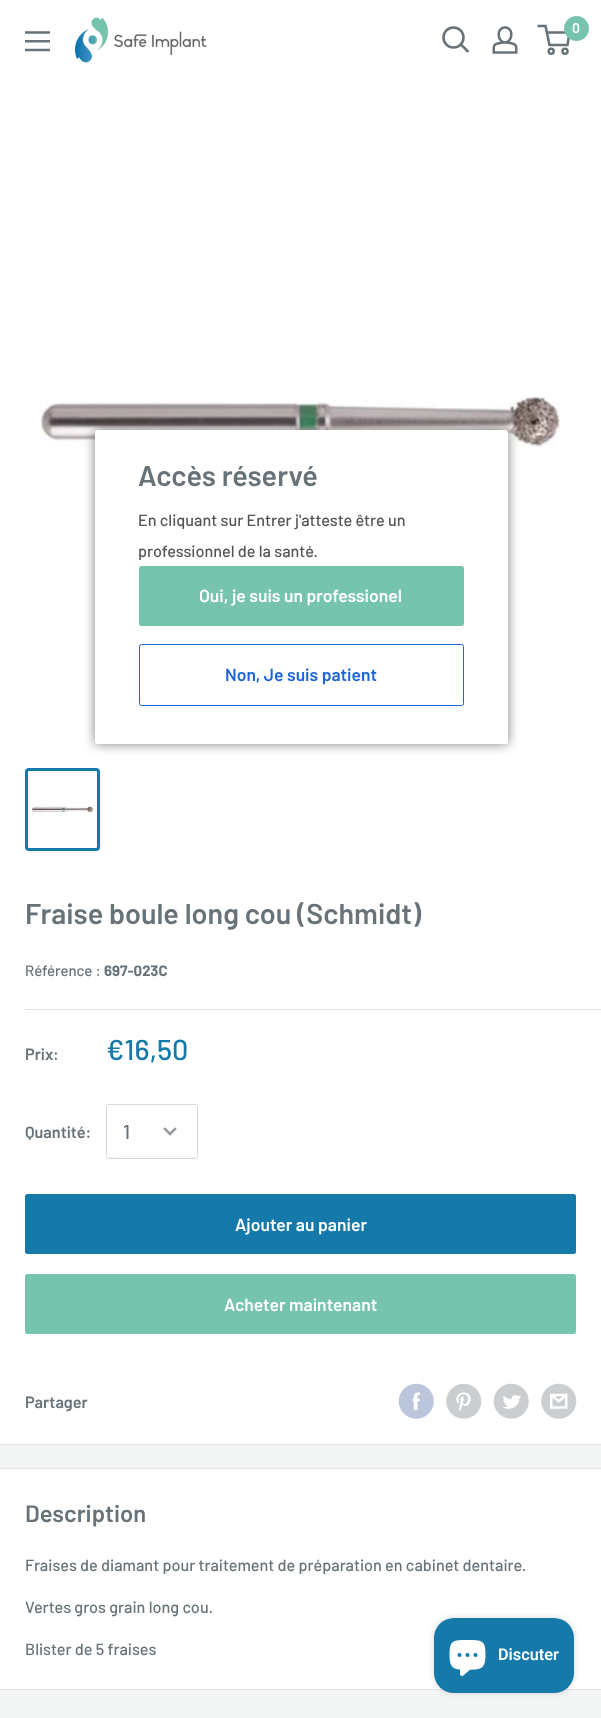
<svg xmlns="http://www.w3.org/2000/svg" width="601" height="1718">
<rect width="100%" height="100%" fill="#f4f6f5"/>
<rect width="601" height="1444" fill="#fff"/>
<image x="75" y="17" width="132" height="46" href="media/1.png"/>
<path d="M467.5 51l-6.5-6.5" fill="none" stroke="#677279" stroke-width="2.6" stroke-linecap="square"/>
<circle cx="453.5" cy="37.5" r="10" fill="none" stroke="#677279" stroke-width="2.6"/>
<image x="492" y="26" width="26" height="28" href="media/2.png"/>
<circle cx="551.2" cy="51.2" r="2.5" fill="none" stroke="#677279" stroke-width="2.5"/>
<circle cx="565" cy="51.2" r="2.5" fill="none" stroke="#677279" stroke-width="2.5"/>
<path d="M546.5 32.5h23l-2 12.5h-18l-4-19h-8" fill="none" stroke="#677279" stroke-width="2.5"/>
<circle cx="576.5" cy="28.5" r="12.5" fill="#76c4ae"/>
<text x="572" y="33" style="font-family:Barlow;font-size:14px;font-weight:600;fill:#fff">0</text>
<image x="25" y="31" width="25" height="21" href="media/3.png"/>
<image x="39" y="397" width="521" height="50" href="media/4.png"/>
<rect x="95" y="430" width="413" height="314" rx="2.5" fill="#00000080" filter="blur(6px)"/>
<rect x="95" y="430" width="413" height="314" rx="2.5" fill="#fff"/>
<text x="138" y="486" style="font-family:Barlow;font-size:28.75px;font-weight:600;fill:#677279">Accès réservé</text>
<text x="138" y="526" style="font-family:Barlow;font-size:16.25px;font-weight:500;fill:#555">En cliquant sur Entrer j'atteste être un</text>
<text x="138" y="557" style="font-family:Barlow;font-size:16.25px;font-weight:500;fill:#555">professionnel de la santé.</text>
<rect x="139" y="566" width="325" height="60" rx="2.5" fill="#76c4ae"/>
<text x="199" y="602" style="font-family:Barlow;font-size:17.5px;font-weight:600;fill:#fff">Oui, je suis un professionel</text>
<rect x="139.5" y="644.5" width="324" height="61" rx="2" fill="none" stroke="#1c64da"/>
<text x="225" y="681" style="font-family:Barlow;font-size:17.5px;font-weight:600;fill:#1c64da">Non, Je suis patient</text>
<rect x="26.5" y="769.5" width="72" height="80" rx="2.5" fill="none" stroke="#1579aa" stroke-width="3"/>
<image x="32" y="806" width="61" height="7" href="media/5.png"/>
<rect y="1444" width="601" height="1" fill="#e1e3e4"/>
<text x="25" y="924" style="font-family:Barlow;font-size:28.75px;font-weight:600;fill:#677279">Fraise boule long cou (Schmidt)</text>
<text x="25" y="976" style="font-family:Barlow;font-size:15px;font-weight:500;fill:#677279">Référence :</text>
<text x="104" y="976" style="font-family:Barlow;font-size:15px;font-weight:bold;fill:#677279">697-023C</text>
<rect x="25" y="1009" width="576" height="1" fill="#e1e3e4"/>
<text x="25" y="1060" style="font-family:Barlow;font-size:16.25px;font-weight:600;fill:#677279">Prix:</text>
<text x="106" y="1060" style="font-family:Barlow;font-size:28.75px;font-weight:500;fill:#1579aa">€16,50</text>
<text x="25" y="1138" style="font-family:Barlow;font-size:16.25px;font-weight:600;fill:#677279">Quantité:</text>
<path d="M108 1156c0 0 0 2 1 2h72c9 0 15 4 15-3l-1 1h-72c-10 0-14 1-15 0z" fill="#f6f7f7"/>
<rect x="106.5" y="1104.5" width="91" height="54" rx="2" fill="none" stroke="#d4d6d8"/>
<text x="123" y="1139" style="font-family:Barlow;font-size:20px;font-weight:500;fill:#677279">1</text>
<path d="M175 1129l-5 5l-5-5" fill="none" stroke="#959ca1" stroke-width="2.5" stroke-linecap="square"/>
<rect x="25" y="1194" width="551" height="60" rx="2.5" fill="#1579aa"/>
<text x="235" y="1231" style="font-family:Barlow;font-size:17.5px;font-weight:600;fill:#fff">Ajouter au panier</text>
<rect x="25" y="1274" width="551" height="60" rx="2.5" fill="#76c4ae"/>
<text x="224" y="1311" style="font-family:Barlow;font-size:17.5px;font-weight:600;fill:#fff">Acheter maintenant</text>
<text x="25" y="1408" style="font-family:Barlow;font-size:16.25px;font-weight:600;fill:#677279">Partager</text>
<image x="398" y="1383" width="36" height="36" href="media/6.png"/>
<image x="446" y="1383" width="36" height="36" href="media/7.png"/>
<image x="493" y="1383" width="36" height="36" href="media/8.png"/>
<image x="541" y="1383" width="36" height="36" href="media/9.png"/>
<rect y="1469" width="601" height="220" fill="#fff"/>
<rect y="1468" width="601" height="1" fill="#e1e3e4"/>
<rect y="1689" width="601" height="1" fill="#e1e3e4"/>
<text x="25" y="1522" style="font-family:Barlow;font-size:23.75px;font-weight:600;fill:#677279">Description</text>
<text x="25" y="1571" style="font-family:Barlow;font-size:16.25px;font-weight:500;fill:#677279">Fraises de diamant pour traitement de préparation en cabinet dentaire.</text>
<text x="25" y="1613" style="font-family:Barlow;font-size:16.25px;font-weight:500;fill:#677279">Vertes gros grain long cou.</text>
<text x="25" y="1655" style="font-family:Barlow;font-size:16.25px;font-weight:500;fill:#677279">Blister de 5 fraises</text>
<rect x="434" y="1618" width="140" height="75" rx="20" fill="#00000026" filter="blur(3px)"/>
<rect x="434" y="1618" width="140" height="75" rx="20" fill="#1579aa"/>
<image x="449" y="1640" width="37" height="36" href="media/10.png"/>
<text x="498" y="1660" style="font-family:Roboto;font-size:16.25px;font-weight:600;fill:#fff">Discuter</text>
</svg>
